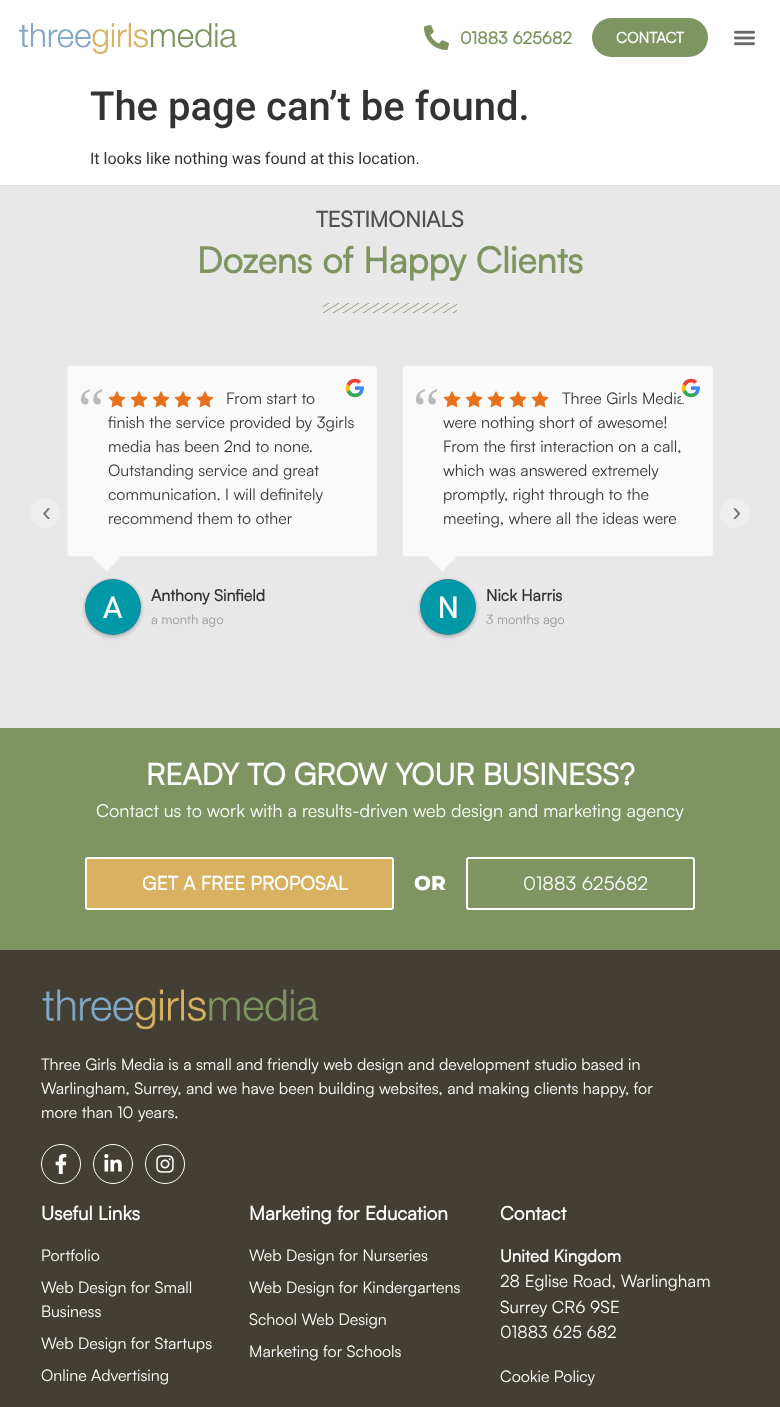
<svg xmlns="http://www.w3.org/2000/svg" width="780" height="1407">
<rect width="100%" height="100%" fill="#fff"/>
<image x="19" y="23" width="218" height="31" href="media/1.png"/>
<image x="424" y="25" width="25" height="25" href="media/2.png"/>
<text x="460" y="44" style="font-family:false;font-size:17px;font-weight:bold;fill:#7f9561">01883 625682</text>
<rect x="592" y="18" width="116" height="39" rx="19.5" fill="#7f9561"/>
<text x="616" y="43" style="font-family:false;font-size:15px;font-weight:bold;fill:#fff">CONTACT</text>
<image x="734" y="30" width="21" height="16" href="media/3.png"/>
<text x="90" y="120" style="font-family:Roboto;font-size:40px;font-weight:500;fill:#333">The page can’t be found.</text>
<text x="90" y="164" style="font-family:Roboto;font-size:16px;fill:#333">It looks like nothing was found at this location.</text>
<rect y="186" width="780" height="542" fill="#e9e8e8"/>
<rect y="185" width="780" height="1" fill="#dee2e6"/>
<text x="316" y="227" style="font-family:false;font-size:22px;font-weight:bold;fill:#505050">TESTIMONIALS</text>
<text x="197" y="273" style="font-family:false;font-size:36px;font-weight:bold;fill:#7f9561">Dozens of Happy Clients</text>
<image x="323" y="303" width="134" height="10" href="media/4.png"/>
<circle cx="45" cy="513" r="15" fill="#eee"/>
<text x="42" y="521" style="font-family:Liberation Sans;font-size:28px;fill:#777">‹</text>
<rect x="67.5" y="365.5" width="310" height="191" rx="3.5" fill="#fafafa" stroke="#ededed"/>
<text x="78" y="429" style="font-family:Liberation Serif;font-size:60px;fill:#bbb">“</text>
<image x="108" y="391" width="18" height="17" href="media/5.png"/>
<image x="130" y="391" width="18" height="17" href="media/5.png"/>
<image x="152" y="391" width="18" height="17" href="media/5.png"/>
<image x="174" y="391" width="18" height="17" href="media/5.png"/>
<image x="196" y="391" width="18" height="17" href="media/5.png"/>
<text x="226" y="404" style="font-family:false;font-size:16px;fill:#393939">From start to</text>
<image x="345" y="378" width="19" height="20" href="media/6.png"/>
<text x="108" y="428" style="font-family:false;font-size:16px;fill:#393939">finish the service provided by 3girls</text>
<text x="108" y="452" style="font-family:false;font-size:16px;fill:#393939">media has been 2nd to none.</text>
<text x="108" y="476" style="font-family:false;font-size:16px;fill:#393939">Outstanding service and great</text>
<text x="108" y="500" style="font-family:false;font-size:16px;fill:#393939">communication. I will definitely</text>
<text x="108" y="524" style="font-family:false;font-size:16px;fill:#393939">recommend them to other</text>
<path d="M106.5 544l14 14l-14 14l-14-14z" fill="#fafafa"/>
<path d="M120 557.5l.5 .5l-14 14l-.5-.5z" fill="#ededed"/>
<path d="M93.5 557.5l14 14l-1 .5l-14-14z" fill="#ededed"/>
<rect x="85" y="581" width="56" height="56" rx="28" fill="#0000003d" filter="blur(2px)"/>
<rect x="85" y="579" width="56" height="56" rx="28" fill="#0000001f" filter="blur(1px)"/>
<image x="85" y="579" width="56" height="56" href="media/7.png"/>
<text x="151" y="601" style="font-family:false;font-size:16px;font-weight:bold;fill:#333">Anthony Sinfield</text>
<text x="151" y="624" style="font-family:false;font-size:13px;fill:#999">a month ago</text>
<rect x="402.5" y="365.5" width="311" height="191" rx="3.5" fill="#fafafa" stroke="#ededed"/>
<text x="413" y="429" style="font-family:Liberation Serif;font-size:60px;fill:#bbb">“</text>
<image x="443" y="391" width="18" height="17" href="media/5.png"/>
<image x="465" y="391" width="18" height="17" href="media/5.png"/>
<image x="487" y="391" width="18" height="17" href="media/5.png"/>
<image x="509" y="391" width="18" height="17" href="media/5.png"/>
<image x="531" y="391" width="18" height="17" href="media/5.png"/>
<text x="562" y="404" style="font-family:false;font-size:16px;fill:#393939">Three Girls Media</text>
<rect x="681" y="396" width="3" height="7" fill="#fafafa"/>
<image x="681" y="378" width="19" height="20" href="media/6.png"/>
<text x="443" y="428" style="font-family:false;font-size:16px;fill:#393939">were nothing short of awesome!</text>
<text x="443" y="452" style="font-family:false;font-size:16px;fill:#393939">From the first interaction on a call,</text>
<text x="443" y="476" style="font-family:false;font-size:16px;fill:#393939">which was answered extremely</text>
<text x="443" y="500" style="font-family:false;font-size:16px;fill:#393939">promptly, right through to the</text>
<text x="443" y="524" style="font-family:false;font-size:16px;fill:#393939">meeting, where all the ideas were</text>
<path d="M442 544l14 14l-14 14l-14-14z" fill="#fafafa"/>
<path d="M455.5 557.5l.5 .5l-14 14l-.5-.5z" fill="#ededed"/>
<path d="M429 557.5l14 14l-1 .5l-14-14z" fill="#ededed"/>
<rect x="420" y="581" width="56" height="56" rx="28" fill="#0000003d" filter="blur(2px)"/>
<rect x="420" y="579" width="56" height="56" rx="28" fill="#0000001f" filter="blur(1px)"/>
<image x="420" y="579" width="56" height="56" href="media/8.png"/>
<text x="486" y="601" style="font-family:false;font-size:16px;font-weight:bold;fill:#333">Nick Harris</text>
<text x="486" y="624" style="font-family:false;font-size:13px;fill:#999">3 months ago</text>
<circle cx="735" cy="513" r="15" fill="#eee"/>
<text x="732" y="521" style="font-family:Liberation Sans;font-size:28px;fill:#777">›</text>
<rect y="728" width="780" height="222" fill="#7f9561"/>
<text x="146" y="785" style="font-family:false;font-size:30px;font-weight:bold;fill:#fff">READY TO GROW YOUR BUSINESS?</text>
<text x="96" y="817" style="font-family:false;font-size:18px;fill:#fff">Contact us to work with a results-driven web design and marketing agency</text>
<rect x="86" y="858" width="307" height="51" rx="2" fill="#d8b161" stroke="#fff" stroke-width="2"/>
<text x="142" y="890" style="font-family:false;font-size:19px;font-weight:bold;fill:#fff">GET A FREE PROPOSAL</text>
<text x="414" y="890" style="font-family:Montserrat;font-size:20px;font-weight:800;fill:#fff">OR</text>
<rect x="467" y="858" width="227" height="51" rx="2" fill="none" stroke="#fff" stroke-width="2"/>
<text x="523" y="890" style="font-family:false;font-size:19px;fill:#fff">01883 625682</text>
<rect y="950" width="780" height="457" fill="#443f35"/>
<image x="42" y="989" width="276" height="41" href="media/9.png"/>
<text x="41" y="1070" style="font-family:false;font-size:16px;fill:#fff">Three Girls Media is a small and friendly web design and development studio based in</text>
<text x="41" y="1094" style="font-family:false;font-size:16px;fill:#fff">Warlingham, Surrey, and we have been building websites, and making clients happy, for</text>
<text x="41" y="1118" style="font-family:false;font-size:16px;fill:#fff">more than 10 years.</text>
<circle cx="61" cy="1164" r="19.5" fill="none" stroke="#fff"/>
<image x="55" y="1154" width="12" height="20" href="media/10.png"/>
<circle cx="113" cy="1164" r="19.5" fill="none" stroke="#fff"/>
<image x="104" y="1154" width="18" height="18" href="media/11.png"/>
<circle cx="165" cy="1164" r="19.5" fill="none" stroke="#fff"/>
<image x="156" y="1155" width="18" height="18" href="media/12.png"/>
<text x="41" y="1220" style="font-family:false;font-size:19px;font-weight:bold;fill:#fff">Useful Links</text>
<text x="41" y="1261" style="font-family:false;font-size:16px;fill:#fff">Portfolio</text>
<text x="41" y="1293" style="font-family:false;font-size:16px;fill:#fff">Web Design for Small</text>
<text x="41" y="1317" style="font-family:false;font-size:16px;fill:#fff">Business</text>
<text x="41" y="1349" style="font-family:false;font-size:16px;fill:#fff">Web Design for Startups</text>
<text x="41" y="1381" style="font-family:false;font-size:16px;fill:#fff">Online Advertising</text>
<text x="249" y="1220" style="font-family:false;font-size:19px;font-weight:bold;fill:#fff">Marketing for Education</text>
<text x="249" y="1261" style="font-family:false;font-size:16px;fill:#fff">Web Design for Nurseries</text>
<text x="249" y="1293" style="font-family:false;font-size:16px;fill:#fff">Web Design for Kindergartens</text>
<text x="249" y="1325" style="font-family:false;font-size:16px;fill:#fff">School Web Design</text>
<text x="249" y="1357" style="font-family:false;font-size:16px;fill:#fff">Marketing for Schools</text>
<text x="500" y="1220" style="font-family:false;font-size:19px;font-weight:bold;fill:#fff">Contact</text>
<text x="500" y="1262" style="font-family:false;font-size:17px;font-weight:bold;fill:#fff">United Kingdom</text>
<text x="500" y="1287" style="font-family:false;font-size:17px;fill:#fff">28 Eglise Road, Warlingham</text>
<text x="500" y="1313" style="font-family:false;font-size:17px;fill:#fff">Surrey CR6 9SE</text>
<text x="500" y="1338" style="font-family:false;font-size:17px;fill:#fff">01883 625 682</text>
<text x="500" y="1382" style="font-family:false;font-size:16px;fill:#fff">Cookie Policy</text>
</svg>
